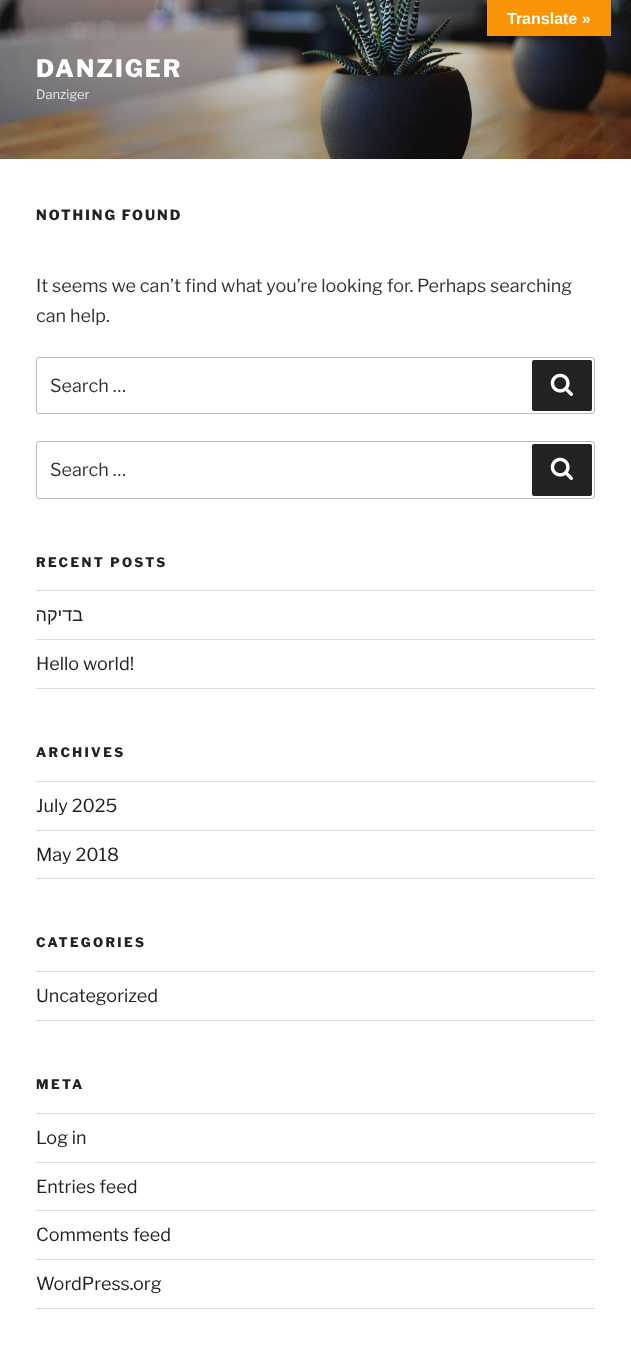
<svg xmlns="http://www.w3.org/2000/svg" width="631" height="1358">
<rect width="100%" height="100%" fill="#fff"/>
<image x="0" y="0" width="631" height="159" href="media/1.png"/>
<rect x="487" width="124" height="36" fill="#0000004d" filter="blur(4.5px)"/>
<rect x="487" width="124" height="36" fill="#f89406"/>
<text x="507" y="24" style="font-family:Liberation Sans;font-size:16px;font-weight:bold;fill:#fff">Translate »</text>
<rect y="159" width="631" height="1" fill="#fafafa"/>
<text x="36" y="77" style="font-family:Libre Franklin;font-size:24px;font-weight:100;letter-spacing:2px;fill:#fff">DANZIGER</text>
<text x="36" y="99" style="font-family:'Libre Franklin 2';font-size:13px;font-weight:100;fill:#e4e3e4">Danziger</text>
<text x="36" y="220" style="font-family:Libre Franklin;font-size:14px;font-weight:100;letter-spacing:2px;fill:#222">NOTHING FOUND</text>
<text x="36" y="292" style="font-family:'Libre Franklin 2';font-size:18px;font-weight:100;fill:#333">It seems we can’t find what you’re looking for. Perhaps searching</text>
<text x="36" y="322" style="font-family:'Libre Franklin 2';font-size:18px;font-weight:100;fill:#333">can help.</text>
<rect x="36.5" y="357.5" width="558" height="56" rx="2.5" fill="none" stroke="#bbb"/>
<text x="50" y="392" style="font-family:'Libre Franklin 2';font-size:18px;font-weight:100;fill:#333">Search …</text>
<rect x="532" y="360" width="60" height="51" rx="2" fill="#222"/>
<image x="550" y="373" width="23" height="23" href="media/2.png"/>
<rect x="36.5" y="441.5" width="558" height="57" rx="2.5" fill="none" stroke="#bbb"/>
<text x="50" y="476" style="font-family:'Libre Franklin 2';font-size:18px;font-weight:100;fill:#333">Search …</text>
<rect x="532" y="444" width="60" height="52" rx="2" fill="#222"/>
<image x="550" y="457" width="23" height="23" href="media/2.png"/>
<text x="36" y="567" style="font-family:Libre Franklin;font-size:13px;font-weight:100;letter-spacing:2.4px;fill:#222">RECENT POSTS</text>
<rect x="36" y="590" width="559" height="1" fill="#ddd"/>
<rect x="36" y="639" width="559" height="1" fill="#ddd"/>
<text x="83" y="621" style="font-family:Liberation Sans;font-size:18px;direction:rtl;fill:#222">בדיקה</text>
<rect x="36" y="688" width="559" height="1" fill="#ddd"/>
<text x="36" y="670" style="font-family:'Libre Franklin 2';font-size:18px;font-weight:100;fill:#222">Hello world!</text>
<text x="36" y="757" style="font-family:Libre Franklin;font-size:13px;font-weight:100;letter-spacing:2.4px;fill:#222">ARCHIVES</text>
<rect x="36" y="781" width="559" height="1" fill="#ddd"/>
<rect x="36" y="830" width="559" height="1" fill="#ddd"/>
<text x="36" y="812" style="font-family:'Libre Franklin 2';font-size:18px;font-weight:100;fill:#222">July 2025</text>
<rect x="36" y="878" width="559" height="1" fill="#ddd"/>
<text x="36" y="861" style="font-family:'Libre Franklin 2';font-size:18px;font-weight:100;fill:#222">May 2018</text>
<text x="36" y="947" style="font-family:Libre Franklin;font-size:13px;font-weight:100;letter-spacing:2.4px;fill:#222">CATEGORIES</text>
<rect x="36" y="971" width="559" height="1" fill="#ddd"/>
<rect x="36" y="1020" width="559" height="1" fill="#ddd"/>
<text x="36" y="1002" style="font-family:'Libre Franklin 2';font-size:18px;font-weight:100;fill:#222">Uncategorized</text>
<text x="36" y="1089" style="font-family:Libre Franklin;font-size:13px;font-weight:100;letter-spacing:2.4px;fill:#222">META</text>
<rect x="36" y="1113" width="559" height="1" fill="#ddd"/>
<rect x="36" y="1162" width="559" height="1" fill="#ddd"/>
<text x="36" y="1144" style="font-family:'Libre Franklin 2';font-size:18px;font-weight:100;fill:#222">Log in</text>
<rect x="36" y="1210" width="559" height="1" fill="#ddd"/>
<text x="36" y="1193" style="font-family:'Libre Franklin 2';font-size:18px;font-weight:100;fill:#222">Entries feed</text>
<rect x="36" y="1259" width="559" height="1" fill="#ddd"/>
<text x="36" y="1241" style="font-family:'Libre Franklin 2';font-size:18px;font-weight:100;fill:#222">Comments feed</text>
<rect x="36" y="1308" width="559" height="1" fill="#ddd"/>
<text x="36" y="1290" style="font-family:'Libre Franklin 2';font-size:18px;font-weight:100;fill:#222">WordPress.org</text>
</svg>
